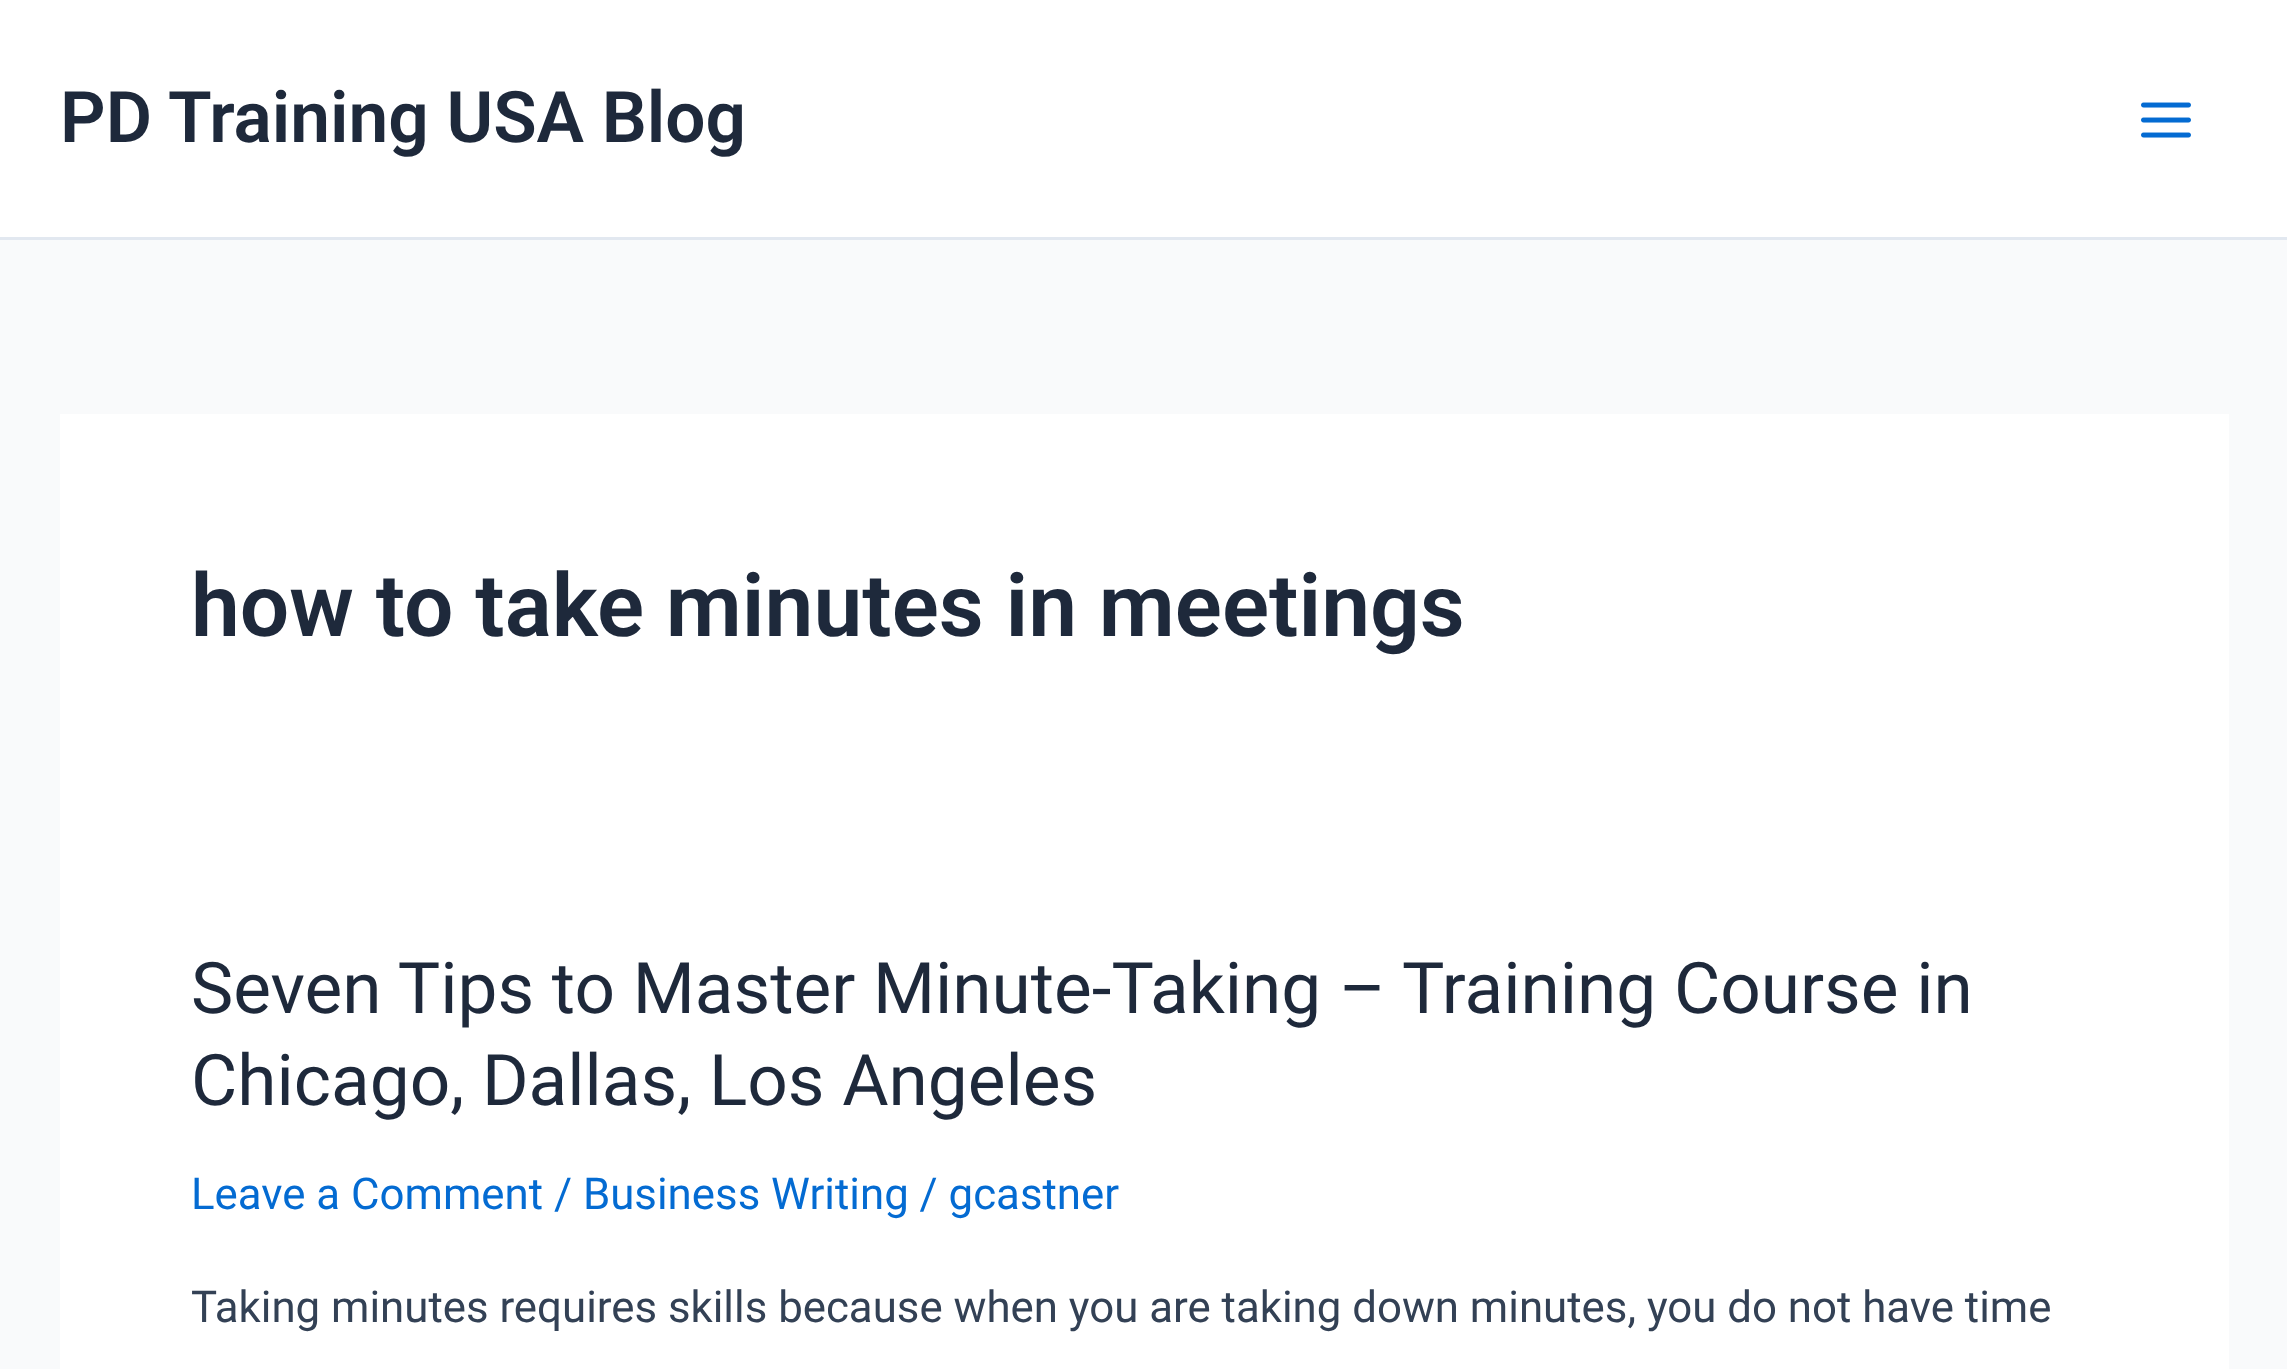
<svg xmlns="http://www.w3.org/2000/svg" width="2287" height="1369">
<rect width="100%" height="100%" fill="#f9fafb"/>
<rect width="2287" height="237" fill="#fff"/>
<rect y="237" width="2287" height="3" fill="#e2e8f0"/>
<text x="60" y="142" style="font-family:Roboto;font-size:71.15px;font-weight:600;fill:#1e293b">PD Training USA Blog</text>
<image x="2141" y="102" width="50" height="36" href="media/1.png"/>
<rect x="60" y="414" width="2169" height="955" fill="#fff"/>
<text x="191" y="636" style="font-family:Roboto;font-size:87.5px;font-weight:600;fill:#1e293b">how to take minutes in meetings</text>
<text x="191" y="1013" style="font-family:Roboto;font-size:71.15px;fill:#1e293b">Seven Tips to Master Minute-Taking – Training Course in</text>
<text x="191" y="1105" style="font-family:Roboto;font-size:71.15px;fill:#1e293b">Chicago, Dallas, Los Angeles</text>
<text x="191" y="1209" style="font-family:Roboto;font-size:43.8px;fill:#046bd2">Leave a Comment</text>
<text x="554" y="1209" style="font-family:Roboto;font-size:43.8px;fill:#046bd2">/ Business Writing / gcastner</text>
<text x="191" y="1322" style="font-family:Roboto;font-size:43.8px;fill:#334155">Taking minutes requires skills because when you are taking down minutes, you do not have time</text>
</svg>
